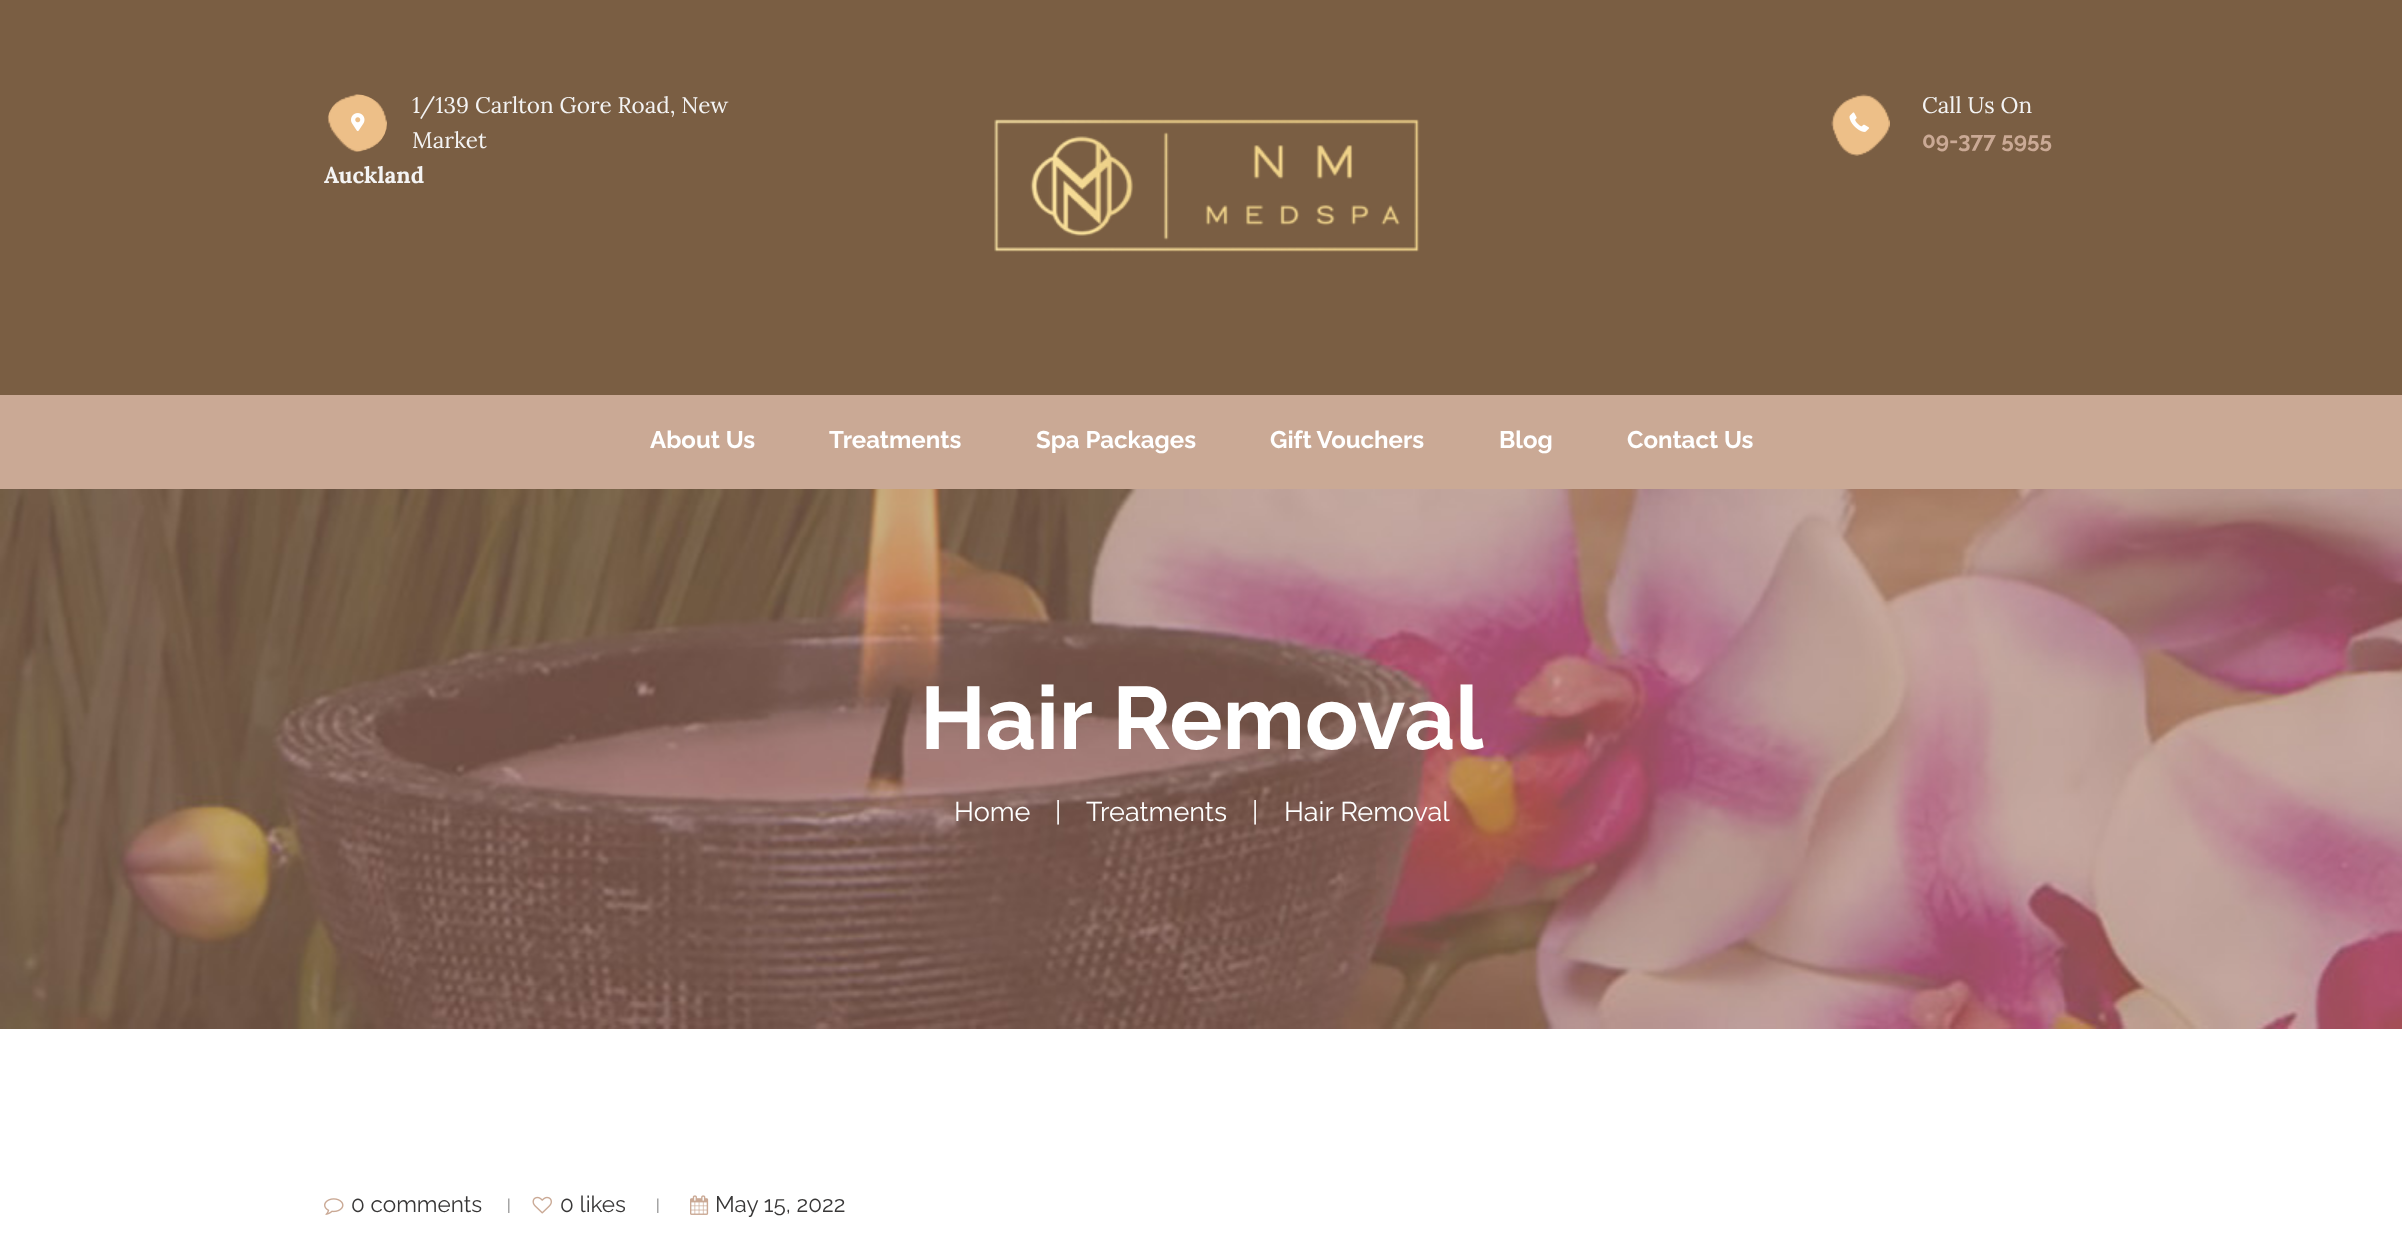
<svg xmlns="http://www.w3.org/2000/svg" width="2402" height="1244">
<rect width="100%" height="100%" fill="#fff"/>
<rect width="2402" height="395" fill="#7a5e43"/>
<image x="327" y="94" width="60" height="58" href="media/1.png"/>
<image x="351" y="113" width="14" height="19" href="media/2.png"/>
<text x="412" y="113" style="font-family:Lora;font-size:22.5px;fill:#f4f4f4">1/139 Carlton Gore Road, New</text>
<text x="412" y="148" style="font-family:Lora;font-size:22.5px;fill:#f4f4f4">Market</text>
<text x="324" y="183" style="font-family:Lora;font-size:22.5px;font-weight:bold;fill:#f4f4f4">Auckland</text>
<image x="994" y="119" width="426" height="133" href="media/3.png"/>
<image x="1831" y="94" width="59" height="62" href="media/4.png"/>
<image x="1849" y="112" width="20" height="20" href="media/5.png"/>
<text x="1922" y="113" style="font-family:Lora;font-size:22.5px;fill:#f4f4f4">Call Us On</text>
<text x="1922" y="148" style="font-family:Raleway;font-size:22.5px;font-weight:bold;fill:#caa995">09-377 5955</text>
<rect y="395" width="2402" height="94" fill="#caa995"/>
<text x="650" y="448" style="font-family:Raleway;font-size:24px;font-weight:bold;fill:#fff">About Us</text>
<text x="829" y="448" style="font-family:Raleway;font-size:24px;font-weight:bold;fill:#fff">Treatments</text>
<text x="1036" y="448" style="font-family:Raleway;font-size:24px;font-weight:bold;fill:#fff">Spa Packages</text>
<text x="1270" y="448" style="font-family:Raleway;font-size:24px;font-weight:bold;fill:#fff">Gift Vouchers</text>
<text x="1499" y="448" style="font-family:Raleway;font-size:24px;font-weight:bold;fill:#fff">Blog</text>
<text x="1627" y="448" style="font-family:Raleway;font-size:24px;font-weight:bold;fill:#fff">Contact Us</text>
<image x="0" y="489" width="2402" height="540" href="media/6.png"/>
<text x="920" y="749" style="font-family:Raleway;font-size:88.5px;font-weight:bold;fill:#fff">Hair Removal</text>
<text x="954" y="821" style="font-family:Raleway;font-size:27px;fill:#fff">Home</text>
<text x="1055" y="821" style="font-family:Raleway;font-size:27px;fill:#fff">|</text>
<text x="1086" y="821" style="font-family:Raleway;font-size:27px;fill:#fff">Treatments</text>
<text x="1252" y="821" style="font-family:Raleway;font-size:27px;fill:#fff">|</text>
<text x="1284" y="821" style="font-family:Raleway;font-size:27px;fill:#fff">Hair Removal</text>
<image x="324" y="1198" width="20" height="17" href="media/7.png"/>
<text x="351" y="1212" style="font-family:Raleway;font-size:22.5px;fill:#383737">0 comments</text>
<text x="507" y="1211" style="font-family:Raleway;font-size:16px;fill:#747373">|</text>
<image x="532" y="1196" width="20" height="18" href="media/8.png"/>
<text x="560" y="1212" style="font-family:Raleway;font-size:22.5px;fill:#383737">0 likes</text>
<text x="656" y="1211" style="font-family:Raleway;font-size:16px;fill:#747373">|</text>
<image x="690" y="1195" width="19" height="20" href="media/9.png"/>
<text x="715" y="1212" style="font-family:Raleway;font-size:22.5px;fill:#383737">May 15, 2022</text>
</svg>
